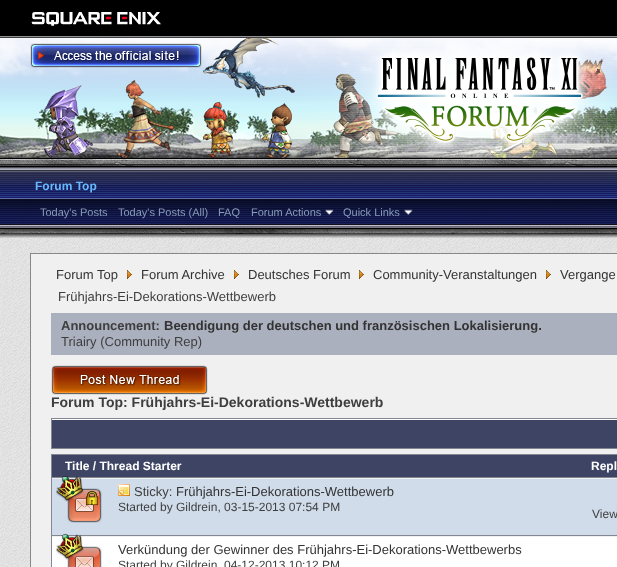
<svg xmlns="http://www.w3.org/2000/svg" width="617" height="567">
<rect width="100%" height="100%" fill="#fff"/>
<image x="0" y="135" width="617" height="432" href="media/1.png"/>
<image x="0" y="0" width="617" height="238" href="media/2.png"/>
<image x="31" y="12" width="130" height="14" href="media/3.png"/>
<image x="30" y="43" width="172" height="25" href="media/4.png"/>
<image x="263" y="38" width="354" height="120" href="media/5.png"/>
<text x="35" y="190" style="font-family:Liberation Sans;font-size:12px;font-weight:bold;fill:#66b9ff">Forum Top</text>
<text x="40" y="216" style="font-family:Liberation Sans;font-size:11px;fill:#889bb6">Today's Posts</text>
<text x="118" y="216" style="font-family:Liberation Sans;font-size:11px;fill:#889bb6">Today's Posts (All)</text>
<text x="218" y="216" style="font-family:Liberation Sans;font-size:11px;fill:#889bb6">FAQ</text>
<text x="251" y="216" style="font-family:Liberation Sans;font-size:11px;fill:#889bb6">Forum Actions</text>
<image x="325" y="209" width="9" height="6" href="media/6.png"/>
<text x="343" y="216" style="font-family:Liberation Sans;font-size:11px;fill:#889bb6">Quick Links</text>
<image x="404" y="209" width="9" height="6" href="media/7.png"/>
<rect x="30.5" y="253.5" width="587" height="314" fill="#f0f0f0" stroke="#888"/>
<image x="127" y="270" width="5" height="9" href="media/8.png"/>
<text x="56" y="279" style="font-family:Liberation Sans;font-size:13px;fill:#333">Forum Top</text>
<image x="234" y="270" width="5" height="9" href="media/8.png"/>
<text x="141" y="279" style="font-family:Liberation Sans;font-size:13px;fill:#333">Forum Archive</text>
<image x="359" y="270" width="5" height="9" href="media/8.png"/>
<text x="248" y="279" style="font-family:Liberation Sans;font-size:13px;fill:#333">Deutsches Forum</text>
<image x="546" y="270" width="5" height="9" href="media/8.png"/>
<text x="373" y="279" style="font-family:Liberation Sans;font-size:13px;fill:#333">Community-Veranstaltungen</text>
<text x="560" y="279" style="font-family:Liberation Sans;font-size:13px;fill:#333">Vergange</text>
<text x="58" y="301" style="font-family:Liberation Sans;font-size:13px;fill:#3e3e3e">Frühjahrs-Ei-Dekorations-Wettbewerb</text>
<rect x="51" y="313" width="566" height="42" fill="#abb0be"/>
<text x="61" y="330" style="font-family:Liberation Sans;font-size:13px;font-weight:bold;fill:#3e3e3e">Announcement:</text>
<text x="164" y="330" style="font-family:Liberation Sans;font-size:13px;font-weight:bold;fill:#333">Beendigung der deutschen und französischen Lokalisierung.</text>
<text x="61" y="346" style="font-family:Liberation Sans;font-size:13px;fill:#3e3e3e">Triairy (Community Rep)</text>
<image x="51" y="365" width="157" height="30" href="media/9.png"/>
<text x="51" y="407" style="font-family:Liberation Sans;font-size:14px;font-weight:bold;fill:#3e3e3e">Forum Top: Frühjahrs-Ei-Dekorations-Wettbewerb</text>
<rect x="52" y="420" width="565" height="28" fill="#3e4464"/>
<rect x="51.5" y="418.5" width="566" height="30" fill="none" stroke="#848692"/>
<rect x="52" y="419" width="565" height="1" fill="#fff"/>
<rect x="51.5" y="454.5" width="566" height="23" fill="#3e4464" stroke="#848692"/>
<text x="65" y="470" style="font-family:Liberation Sans;font-size:12px;font-weight:bold;fill:#fff">Title / Thread Starter</text>
<text x="591" y="470" style="font-family:Liberation Sans;font-size:12px;font-weight:bold;fill:#fff">Repl</text>
<rect x="52" y="479" width="565" height="56" fill="#d0dcea"/>
<rect x="51" y="535" width="566" height="1" fill="#848692"/>
<rect x="51" y="478" width="1" height="89" fill="#848692"/>
<image x="67" y="488" width="35" height="35" href="media/12.png"/>
<image x="56" y="475" width="28" height="27" href="media/10.png"/>
<image x="118" y="484" width="12" height="12" href="media/11.png"/>
<text x="134" y="496" style="font-family:Liberation Sans;font-size:13px;fill:#3e3e3e">Sticky:</text>
<text x="176" y="496" style="font-family:Liberation Sans;font-size:13px;fill:#333">Frühjahrs-Ei-Dekorations-Wettbewerb</text>
<text x="118" y="511" style="font-family:Liberation Sans;font-size:12px;fill:#3e3e3e">Started by Gildrein, 03-15-2013 07:54 PM</text>
<text x="592" y="518" style="font-family:Liberation Sans;font-size:12px;fill:#3e3e3e">View</text>
<rect x="52" y="537" width="565" height="30" fill="#fff"/>
<image x="67" y="546" width="35" height="21" href="media/14.png"/>
<image x="56" y="533" width="28" height="27" href="media/13.png"/>
<text x="118" y="554" style="font-family:Liberation Sans;font-size:13px;fill:#333">Verkündung der Gewinner des Frühjahrs-Ei-Dekorations-Wettbewerbs</text>
<text x="118" y="569" style="font-family:Liberation Sans;font-size:12px;fill:#3e3e3e">Started by Gildrein</text>
<text x="224" y="569" style="font-family:Liberation Sans;font-size:12px;fill:#3e3e3e">04-12-2013 10:12 PM</text>
</svg>
